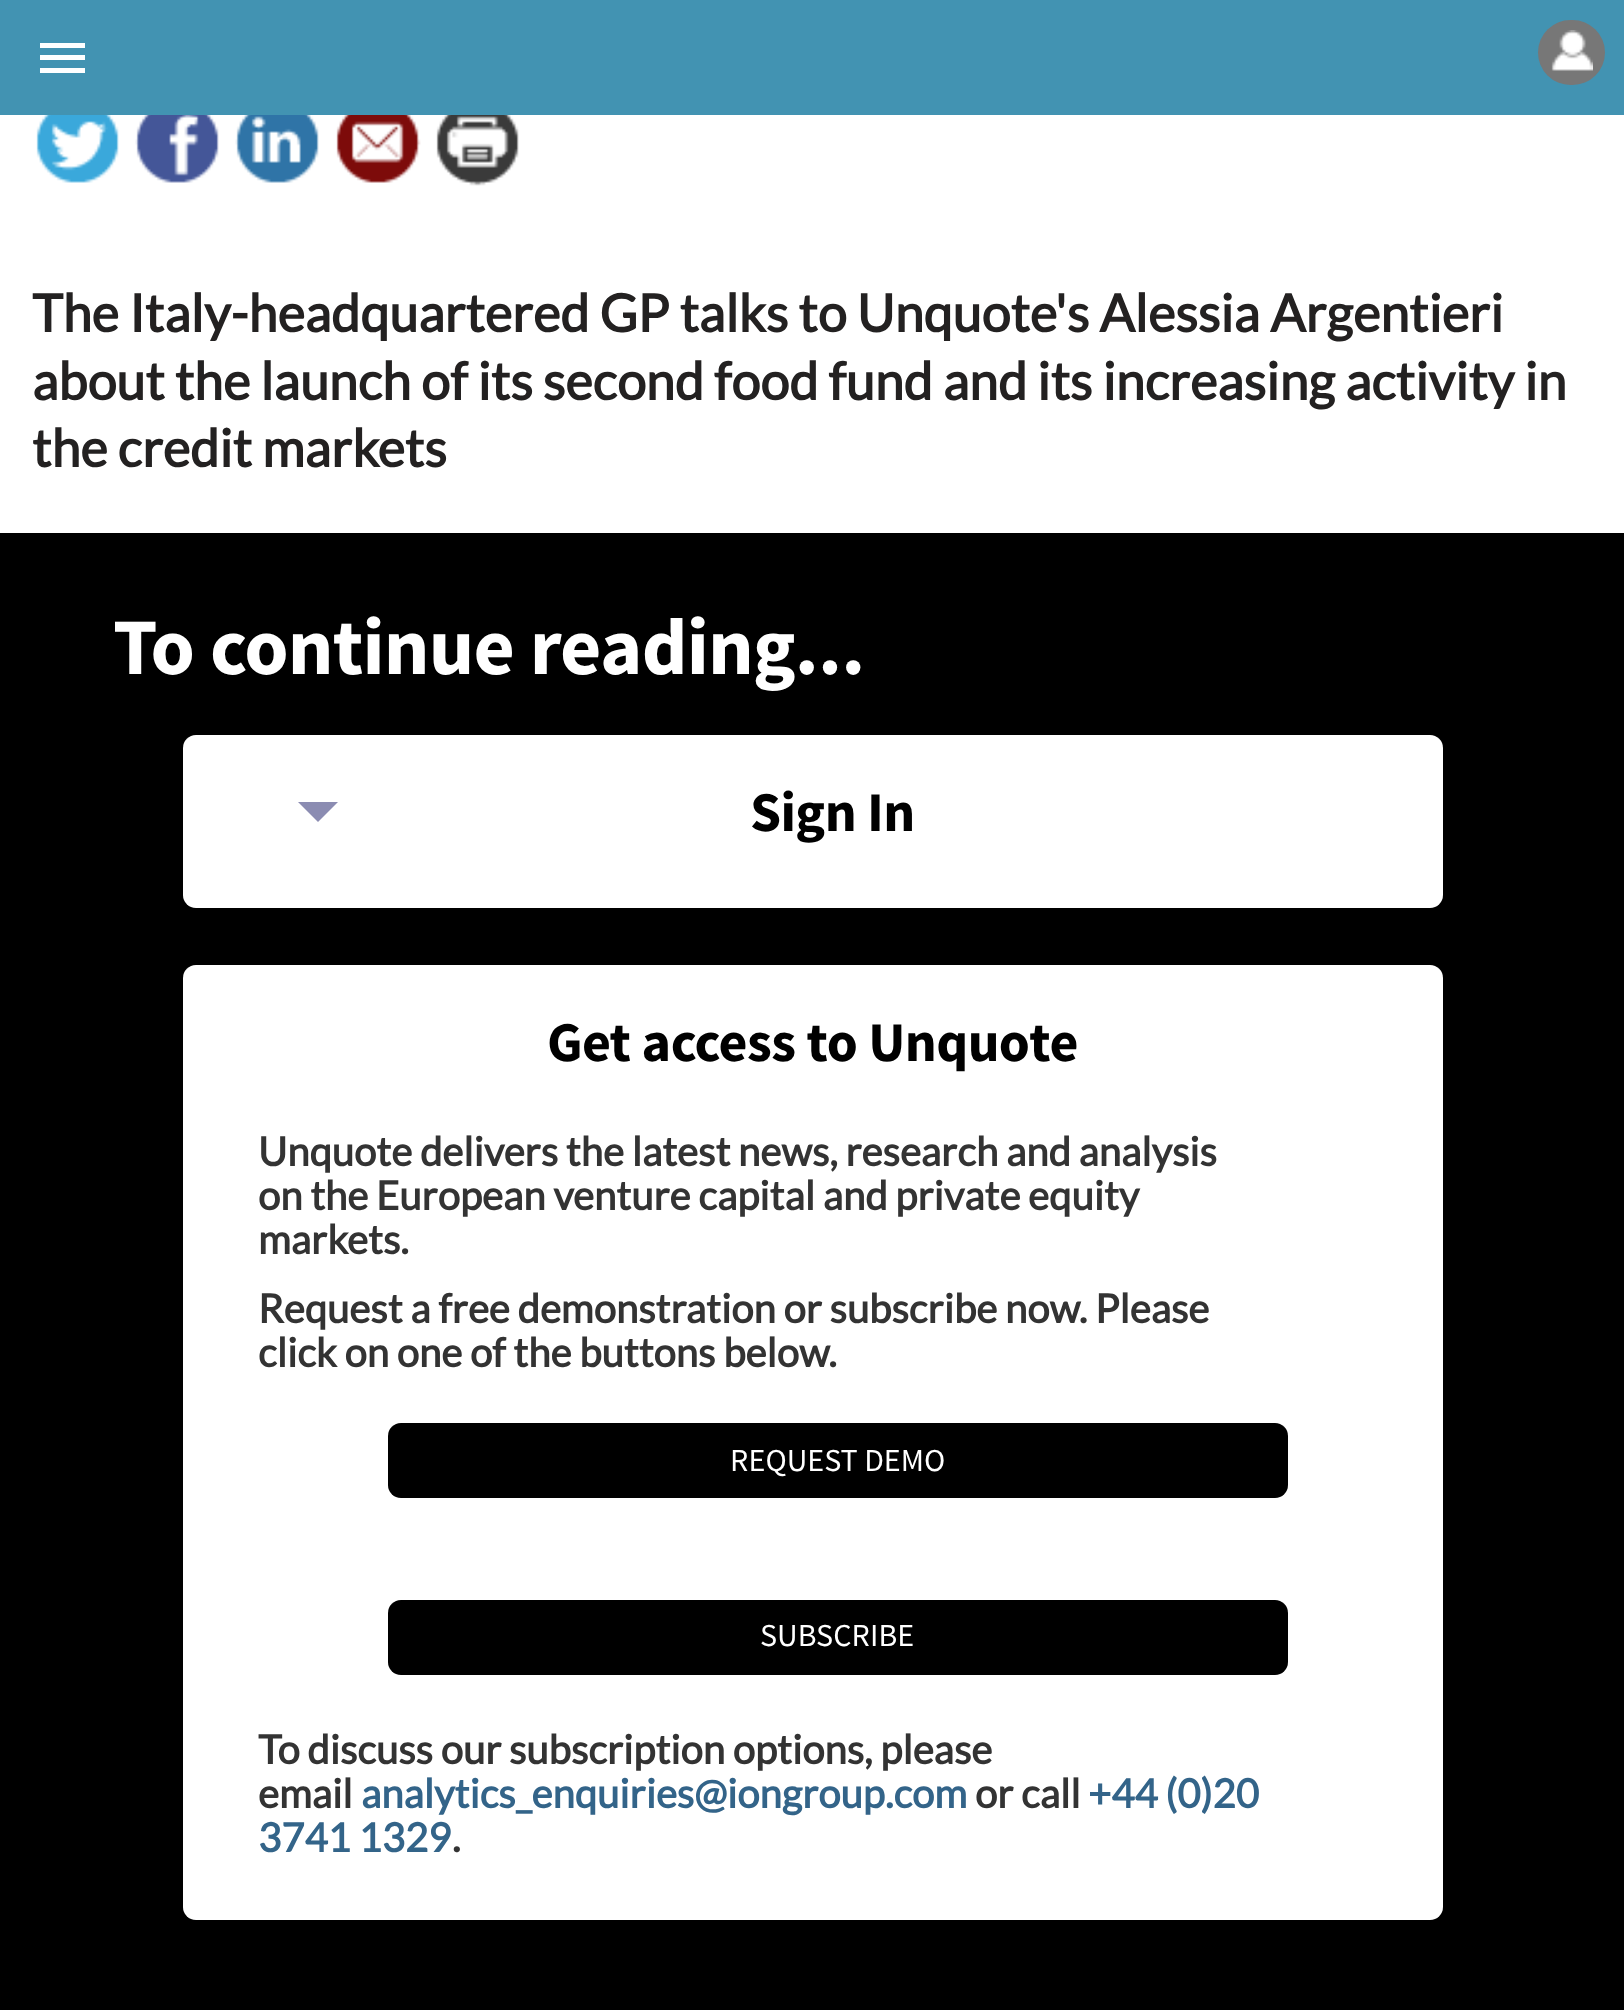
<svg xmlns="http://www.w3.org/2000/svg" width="1624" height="2010">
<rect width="100%" height="100%" fill="#fff"/>
<rect width="1624" height="115" fill="#4293b2"/>
<rect x="40" y="55" width="45" height="5" fill="#fff"/>
<rect x="40" y="43" width="45" height="5" fill="#fff"/>
<rect x="40" y="68" width="45" height="5" fill="#fff"/>
<rect x="1538" y="20" width="67" height="65" rx="32.5" fill="#777"/>
<image x="1551" y="30" width="42" height="41" href="media/1.png"/>
<image x="36" y="115" width="83" height="68" href="media/2.png"/>
<image x="135" y="115" width="84" height="68" href="media/3.png"/>
<image x="235" y="115" width="84" height="68" href="media/4.png"/>
<image x="336" y="115" width="85" height="68" href="media/5.png"/>
<image x="436" y="115" width="83" height="71" href="media/6.png"/>
<text x="32" y="332" style="font-family:Lato;font-size:52px;font-weight:bold;fill:#232121">The Italy-headquartered GP talks to Unquote's Alessia Argentieri</text>
<text x="32" y="400" style="font-family:Lato;font-size:52px;font-weight:bold;fill:#232121">about the launch of its second food fund and its increasing activity in</text>
<text x="32" y="467" style="font-family:Lato;font-size:52px;font-weight:bold;fill:#232121">the credit markets</text>
<rect y="533" width="1624" height="1477" fill="#000"/>
<text x="113" y="674" style="font-family:Source Sans Pro;font-size:80px;font-weight:bold;letter-spacing:-0.8px;fill:#fff">To continue reading...</text>
<rect x="183" y="735" width="1260" height="173" rx="13" fill="#fff"/>
<path d="M298 802h40l-20 20z" fill="#8b8cb2"/>
<text x="750" y="831" style="font-family:Source Sans Pro;font-size:56px;font-weight:bold;letter-spacing:-0.6px;fill:#000">Sign In</text>
<rect x="183" y="965" width="1260" height="955" rx="13" fill="#fff"/>
<text x="547" y="1061" style="font-family:Source Sans Pro;font-size:56px;font-weight:bold;letter-spacing:-0.6px;fill:#000">Get access to Unquote</text>
<text x="258" y="1166" style="font-family:Lato;font-size:40px;font-weight:bold;fill:#333">Unquote delivers the latest news, research and analysis</text>
<text x="258" y="1210" style="font-family:Lato;font-size:40px;font-weight:bold;fill:#333">on the European venture capital and private equity</text>
<text x="258" y="1254" style="font-family:Lato;font-size:40px;font-weight:bold;fill:#333">markets.</text>
<text x="258" y="1323" style="font-family:Lato;font-size:40px;font-weight:bold;fill:#333">Request a free demonstration or subscribe now. Please</text>
<text x="258" y="1367" style="font-family:Lato;font-size:40px;font-weight:bold;fill:#333">click on one of the buttons below.</text>
<rect x="388" y="1423" width="900" height="75" rx="13" fill="#000"/>
<text x="730" y="1471" style="font-family:Source Sans Pro;font-size:32px;fill:#fff">REQUEST DEMO</text>
<rect x="388" y="1600" width="900" height="75" rx="13" fill="#000"/>
<text x="760" y="1646" style="font-family:Source Sans Pro;font-size:32px;fill:#fff">SUBSCRIBE</text>
<text x="258" y="1764" style="font-family:Lato;font-size:40px;font-weight:bold;fill:#333">To discuss our subscription options, please</text>
<text x="258" y="1808" style="font-family:Lato;font-size:40px;font-weight:bold;fill:#333">email</text>
<text x="361" y="1808" style="font-family:Lato;font-size:40px;font-weight:bold;fill:#336489">analytics_enquiries@iongroup.com</text>
<text x="975" y="1808" style="font-family:Lato;font-size:40px;font-weight:bold;fill:#333">or call</text>
<text x="1088" y="1808" style="font-family:Lato;font-size:40px;font-weight:bold;fill:#336489">+44 (0)20</text>
<text x="258" y="1852" style="font-family:Lato;font-size:40px;font-weight:bold;fill:#336489">3741 1329</text>
<text x="452" y="1852" style="font-family:Lato;font-size:40px;font-weight:bold;fill:#333">.</text>
</svg>
